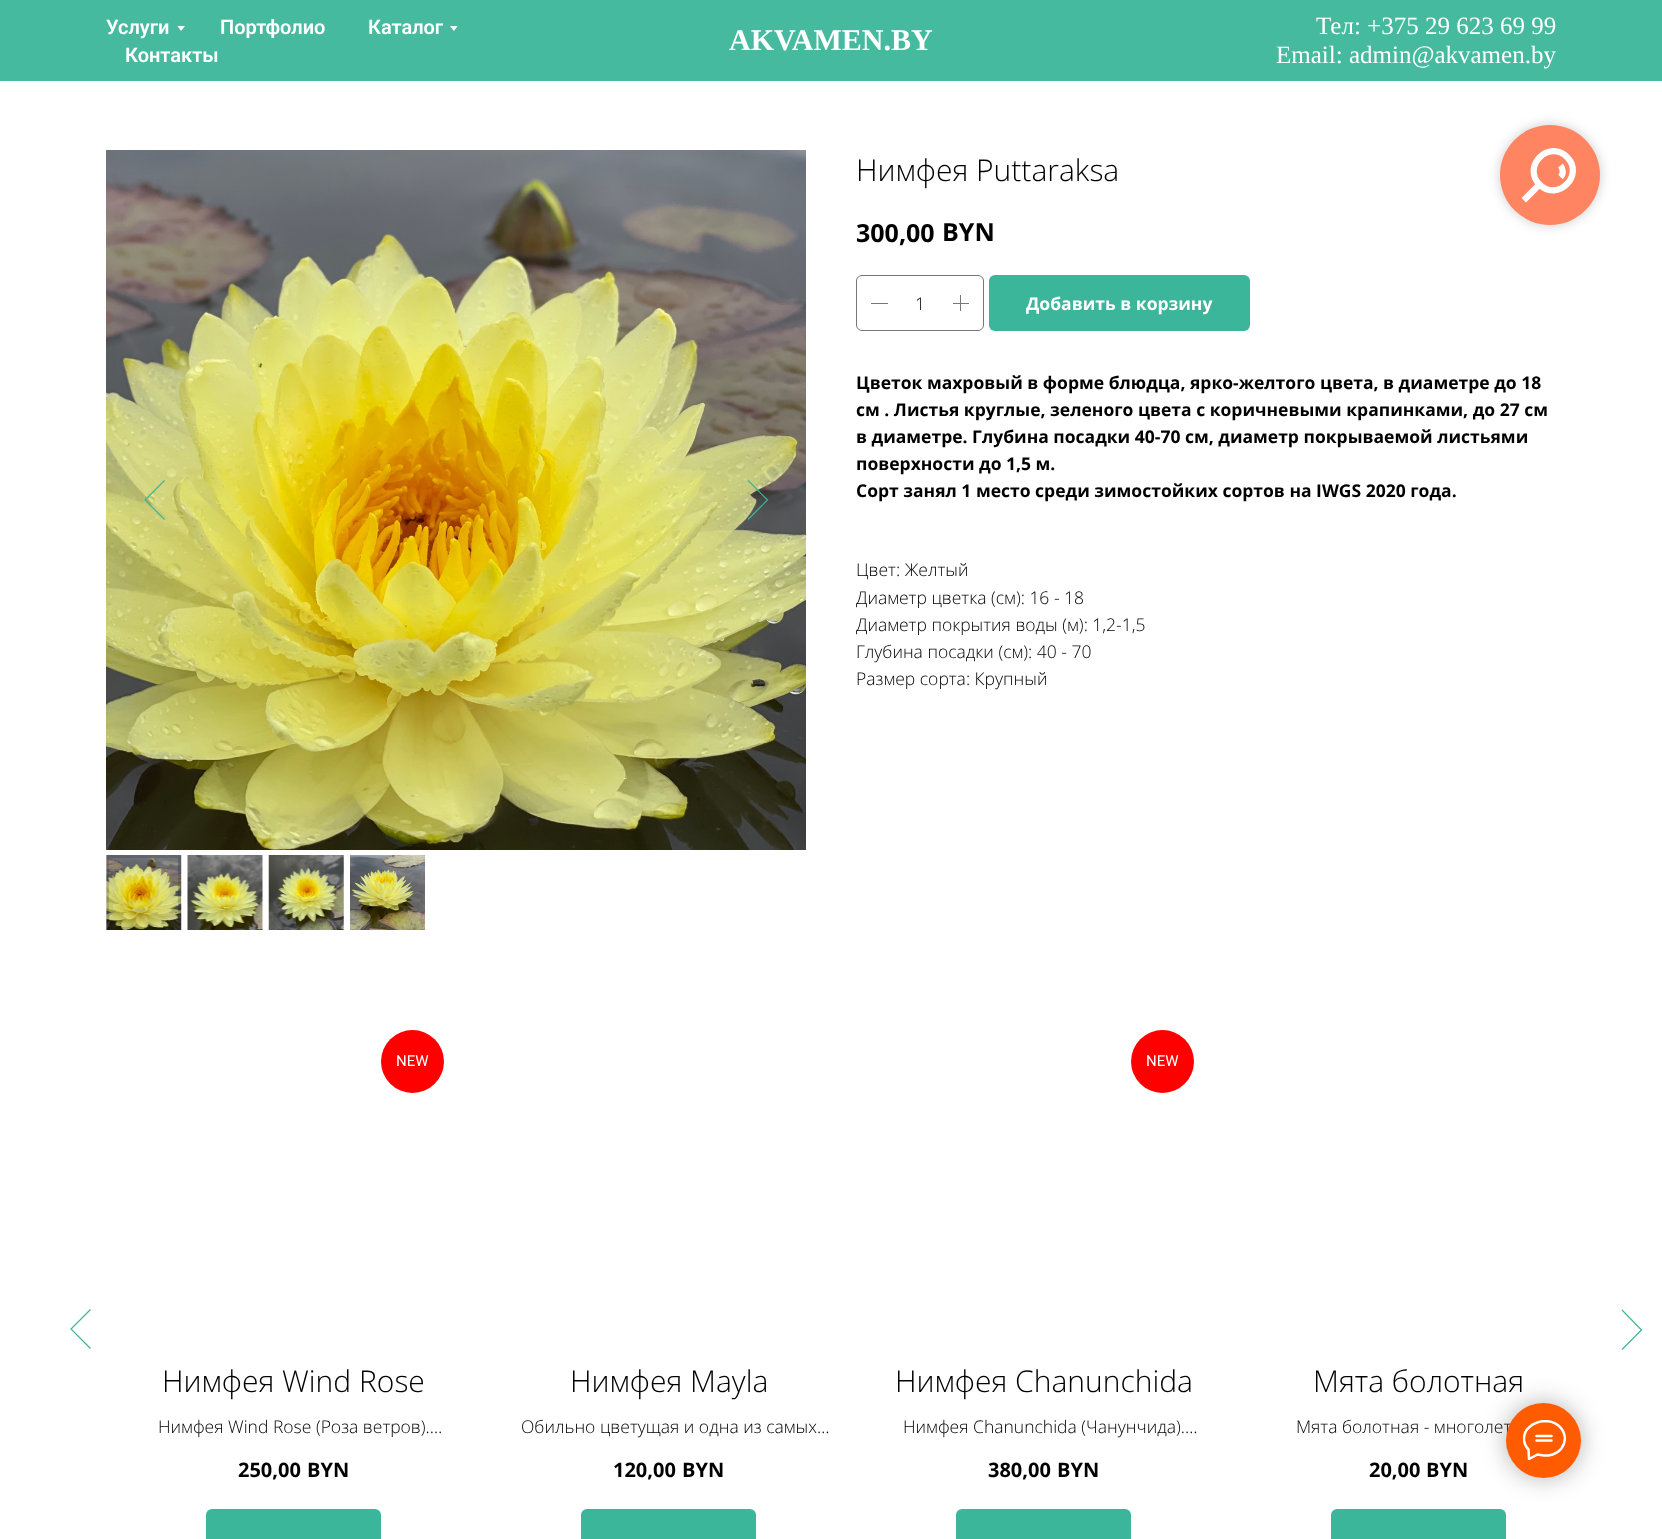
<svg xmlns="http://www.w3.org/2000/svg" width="1662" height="1539">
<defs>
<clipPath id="clip1"><rect x="1523" y="1420" width="43" height="40"/></clipPath>
</defs>
<rect width="100%" height="100%" fill="#fff"/>
<rect width="1662" height="81" fill="#46ba9f"/>
<text x="106" y="34" style="font-family:Roboto;font-size:20px;font-weight:600;fill:#fff">Услуги</text>
<path d="M177.5 26h7.5l-4 5z" fill="#fff"/>
<text x="220" y="34" style="font-family:Roboto;font-size:20px;font-weight:600;fill:#fff">Портфолио</text>
<text x="368" y="34" style="font-family:Roboto;font-size:20px;font-weight:600;fill:#fff">Каталог</text>
<path d="M450 26h7.5l-3.5 5z" fill="#fff"/>
<text x="125" y="62" style="font-family:Roboto;font-size:20px;font-weight:600;fill:#fff">Контакты</text>
<text x="729" y="50" style="font-family:Liberation Serif;font-size:30px;font-weight:bold;fill:#fff">AKVAMEN.BY</text>
<text x="1316" y="34" style="font-family:Liberation Serif;font-size:25px;fill:#fff">Тел: +375 29 623 69 99</text>
<text x="1276" y="63" style="font-family:Liberation Serif;font-size:25px;fill:#fff">Email: admin@akvamen.by</text>
<rect x="1500" y="125" width="100" height="100" rx="50" fill="#00000033" filter="blur(6px)"/>
<circle cx="1550" cy="175" r="50" fill="#ff8562"/>
<path d="M1539 185l-13 13" fill="none" stroke="#fff" stroke-width="6.2" stroke-linecap="square"/>
<path d="M1567 157c18 18-9.5 45.5-27.5 27.5c-18-18 9.5-45.5 27.5-27.5zm-6.5 8.5c3 3.5 3 8.5 0 11.5" fill="none" stroke="#fff" stroke-width="6.2"/>
<rect x="1331" y="1509" width="175" height="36" rx="6" fill="#3cb69a"/>
<rect x="1506" y="1403" width="75" height="75" rx="37.5" fill="#0000004d" filter="blur(12.5px)"/>
<text x="1296" y="1433" style="font-family:Open Sans;font-size:17.5px;font-weight:300;fill:#000">Мята болотная - многолет</text>
<circle cx="1543.5" cy="1440.5" r="37.5" fill="#ff5b00"/>
<g clip-path="url(#clip1)">
<path d="M1536.5 1436h15m-15 4.5h15m-23 9c-6.5-6.5-6-17 1.5-23c4-3.5 9-5 14.5-5.5c24 0 28.5 30 4 34.5c-4 .5-7-.5-11-1l-8.5 4.5z" fill="none" stroke="#fff" stroke-width="2.5" stroke-linecap="round" stroke-linejoin="round"/>
</g>
<image x="106" y="150" width="700" height="700" href="media/1.png"/>
<path d="M164.5 519.5l-19.5-19.5l19.5-19.5" fill="none" stroke="#3cb69a" stroke-width="1.2"/>
<path d="M748 480.5l19.5 19.5l-19.5 19.5" fill="none" stroke="#3cb69a" stroke-width="1.2"/>
<image x="106" y="855" width="76" height="75" href="media/2.png"/>
<rect x="107.5" y="856.5" width="72" height="72" fill="none" stroke="#00000026" stroke-width="3"/>
<image x="187" y="855" width="76" height="75" href="media/3.png"/>
<image x="268" y="855" width="76" height="75" href="media/4.png"/>
<image x="350" y="855" width="75" height="75" href="media/5.png"/>
<text x="856" y="181" style="font-family:Open Sans;font-size:30px;font-weight:300;fill:#000">Нимфея Puttaraksa</text>
<text x="856" y="242" style="font-family:Open Sans;font-size:25px;font-weight:bold;fill:#000">300,00</text>
<text x="942" y="241" style="font-family:Open Sans;font-size:25px;font-weight:bold;fill:#000">BYN</text>
<rect x="856.5" y="275.5" width="127" height="55" rx="5.5" fill="none" stroke="#777"/>
<rect x="871" y="303" width="17" height="1" fill="#777"/>
<text x="915" y="310" style="font-family:Open Sans;font-size:17.5px;font-weight:300;fill:#000">1</text>
<rect x="960" y="295" width="1" height="16" fill="#777"/>
<rect x="953" y="303" width="16" height="1" fill="#777"/>
<rect x="989" y="275" width="261" height="56" rx="6" fill="#3cb69a"/>
<text x="1026" y="310" style="font-family:Open Sans;font-size:17.5px;font-weight:bold;fill:#fff">Добавить в корзину</text>
<text x="856" y="389" style="font-family:Open Sans;font-size:17.5px;font-weight:bold;fill:#000">Цветок махровый в форме блюдца, ярко-желтого цвета, в диаметре до 18</text>
<text x="856" y="416" style="font-family:Open Sans;font-size:17.5px;font-weight:bold;fill:#000">см . Листья круглые, зеленого цвета с коричневыми крапинками, до 27 см</text>
<text x="856" y="443" style="font-family:Open Sans;font-size:17.5px;font-weight:bold;fill:#000">в диаметре. Глубина посадки 40-70 см, диаметр покрываемой листьями</text>
<text x="856" y="470" style="font-family:Open Sans;font-size:17.5px;font-weight:bold;fill:#000">поверхности до 1,5 м.</text>
<text x="856" y="497" style="font-family:Open Sans;font-size:17.5px;font-weight:bold;fill:#000">Сорт занял 1 место среди зимостойких сортов на IWGS 2020 года.</text>
<text x="856" y="576" style="font-family:Open Sans;font-size:17.5px;font-weight:300;fill:#000">Цвет: Желтый</text>
<text x="856" y="604" style="font-family:Open Sans;font-size:17.5px;font-weight:300;fill:#000">Диаметр цветка (см): 16 - 18</text>
<text x="856" y="631" style="font-family:Open Sans;font-size:17.5px;font-weight:300;fill:#000">Диаметр покрытия воды (м): 1,2-1,5</text>
<text x="856" y="658" style="font-family:Open Sans;font-size:17.5px;font-weight:300;fill:#000">Глубина посадки (см): 40 - 70</text>
<text x="856" y="685" style="font-family:Open Sans;font-size:17.5px;font-weight:300;fill:#000">Размер сорта: Крупный</text>
<path d="M90.5 1348.5l-19.5-19.5l19.5-19.5" fill="none" stroke="#3cb69a" stroke-width="1.2"/>
<circle cx="412.5" cy="1061.5" r="31.5" fill="#f00"/>
<text x="396" y="1066" style="font-family:Roboto;font-size:15px;fill:#fff">NEW</text>
<text x="162" y="1392" style="font-family:Open Sans;font-size:30px;font-weight:300;fill:#000">Нимфея Wind Rose</text>
<text x="158" y="1433" style="font-family:Open Sans;font-size:17.5px;font-weight:300;fill:#000">Нимфея Wind Rose (Роза ветров).…</text>
<text x="238" y="1477" style="font-family:Open Sans;font-size:20px;font-weight:bold;fill:#000">250,00</text>
<text x="307" y="1477" style="font-family:Open Sans;font-size:20px;font-weight:bold;fill:#000">BYN</text>
<rect x="206" y="1509" width="175" height="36" rx="6" fill="#3cb69a"/>
<text x="570" y="1392" style="font-family:Open Sans;font-size:30px;font-weight:300;fill:#000">Нимфея Mayla</text>
<text x="521" y="1433" style="font-family:Open Sans;font-size:17.5px;font-weight:300;fill:#000">Обильно цветущая и одна из самых…</text>
<text x="613" y="1477" style="font-family:Open Sans;font-size:20px;font-weight:bold;fill:#000">120,00</text>
<text x="682" y="1477" style="font-family:Open Sans;font-size:20px;font-weight:bold;fill:#000">BYN</text>
<rect x="581" y="1509" width="175" height="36" rx="6" fill="#3cb69a"/>
<circle cx="1162.5" cy="1061.5" r="31.5" fill="#f00"/>
<text x="1146" y="1066" style="font-family:Roboto;font-size:15px;fill:#fff">NEW</text>
<text x="895" y="1392" style="font-family:Open Sans;font-size:30px;font-weight:300;fill:#000">Нимфея Chanunchida</text>
<text x="903" y="1433" style="font-family:Open Sans;font-size:17.5px;font-weight:300;fill:#000">Нимфея Chanunchida (Чанунчида).…</text>
<text x="988" y="1477" style="font-family:Open Sans;font-size:20px;font-weight:bold;fill:#000">380,00</text>
<text x="1057" y="1477" style="font-family:Open Sans;font-size:20px;font-weight:bold;fill:#000">BYN</text>
<rect x="956" y="1509" width="175" height="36" rx="6" fill="#3cb69a"/>
<text x="1313" y="1392" style="font-family:Open Sans;font-size:30px;font-weight:300;fill:#000">Мята болотная</text>
<text x="1369" y="1477" style="font-family:Open Sans;font-size:20px;font-weight:bold;fill:#000">20,00</text>
<text x="1426" y="1477" style="font-family:Open Sans;font-size:20px;font-weight:bold;fill:#000">BYN</text>
<path d="M1622 1310l19.5 20l-19.5 19.5" fill="none" stroke="#3cb69a" stroke-width="1.2"/>
</svg>
